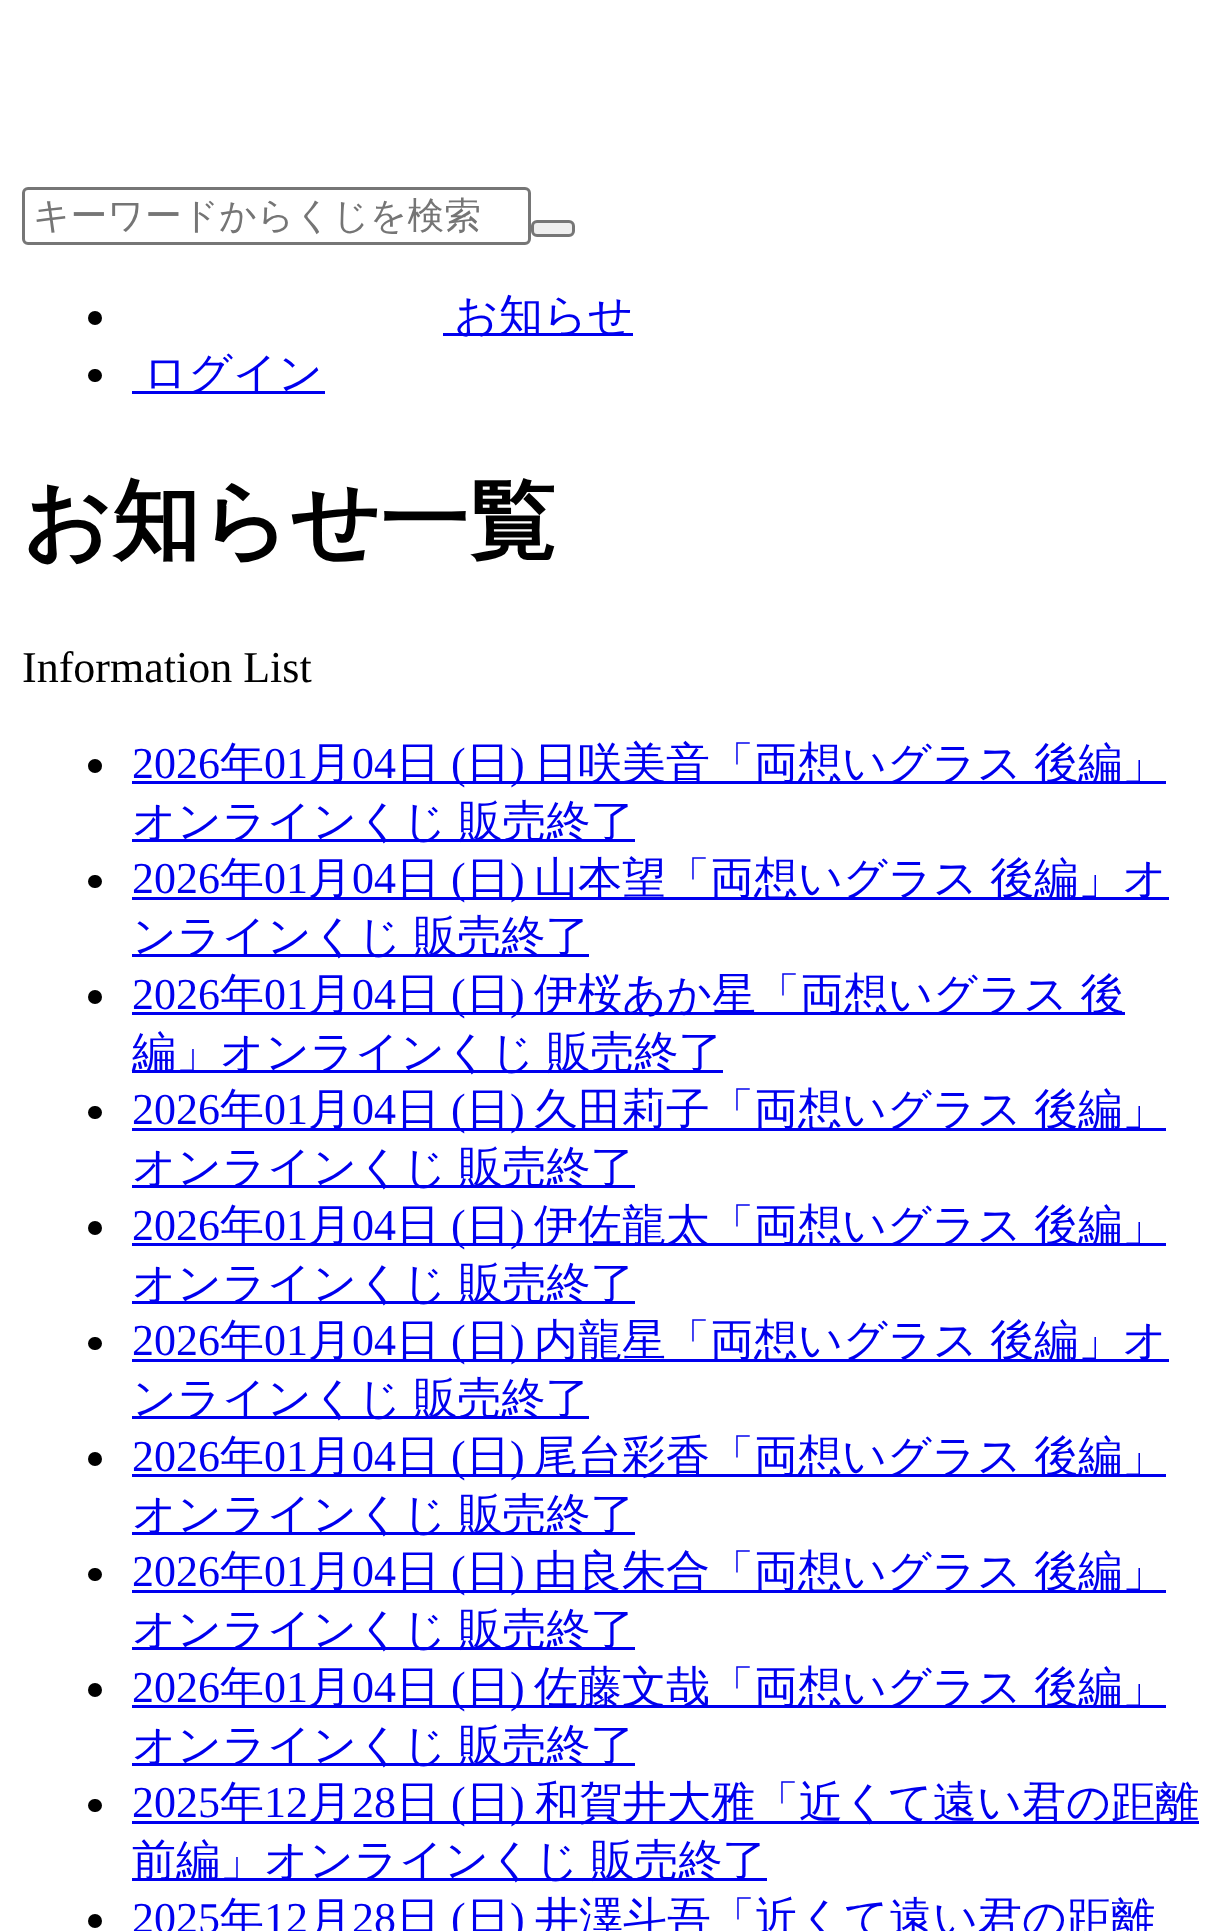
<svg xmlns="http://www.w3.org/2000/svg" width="1230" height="1931">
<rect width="100%" height="100%" fill="#fff"/>
<rect x="23.5" y="188.5" width="506" height="55" rx="4.5" fill="none" stroke="#767676" stroke-width="3"/>
<text x="33" y="228" style="font-family:WenQuanYi Zen Hei;font-size:36.75px;font-weight:500;fill:#757575">キーワードからくじを検索</text>
<rect x="532.5" y="221.5" width="41" height="14" rx="4.5" fill="#efefef" stroke="#767676" stroke-width="3"/>
<circle cx="95" cy="318" r="7" fill="#000"/>
<rect x="443" y="333" width="190" height="3" fill="#00e"/>
<text x="454" y="330" style="font-family:WenQuanYi Zen Hei;font-size:44px;font-weight:500;fill:#00e">お知らせ</text>
<rect x="88" y="369" width="14" height="13" rx="6.5" fill="#000"/>
<rect x="132" y="391" width="193" height="3" fill="#00e"/>
<text x="143" y="388" style="font-family:WenQuanYi Zen Hei;font-size:44px;font-weight:500;fill:#00e">ログイン</text>
<text x="22" y="551" style="font-family:WenQuanYi Zen Hei;font-size:88px;font-weight:bold;fill:#000">お知らせ一覧</text>
<text x="22" y="682" style="font-family:Liberation Serif;font-size:44px;fill:#000">Information List</text>
<circle cx="95" cy="766" r="7" fill="#000"/>
<text x="132" y="778" style="font-family:Liberation Serif;font-size:44px;fill:#00e">2026</text>
<rect x="132" y="781" width="1034" height="3" fill="#00e"/>
<text x="220" y="778" style="font-family:WenQuanYi Zen Hei;font-size:44px;font-weight:500;fill:#00e">年</text>
<text x="264" y="778" style="font-family:Liberation Serif;font-size:44px;fill:#00e">01</text>
<text x="308" y="778" style="font-family:WenQuanYi Zen Hei;font-size:44px;font-weight:500;fill:#00e">月</text>
<text x="352" y="778" style="font-family:Liberation Serif;font-size:44px;fill:#00e">04</text>
<text x="396" y="778" style="font-family:WenQuanYi Zen Hei;font-size:44px;font-weight:500;fill:#00e">日</text>
<text x="451" y="778" style="font-family:Liberation Serif;font-size:44px;fill:#00e">(</text>
<text x="466" y="778" style="font-family:WenQuanYi Zen Hei;font-size:44px;font-weight:500;fill:#00e">日</text>
<text x="510" y="778" style="font-family:Liberation Serif;font-size:44px;fill:#00e">)</text>
<text x="534" y="778" word-spacing="-1" style="font-family:WenQuanYi Zen Hei;font-size:44px;font-weight:500;fill:#00e">日咲美音「両想いグラス 後編」</text>
<rect x="132" y="839" width="503" height="3" fill="#00e"/>
<text x="132" y="836" word-spacing="-2" style="font-family:WenQuanYi Zen Hei;font-size:44px;font-weight:500;fill:#00e">オンラインくじ 販売終了</text>
<rect x="88" y="875" width="14" height="13" rx="6.5" fill="#000"/>
<text x="132" y="893" style="font-family:Liberation Serif;font-size:44px;fill:#00e">2026</text>
<rect x="132" y="897" width="1037" height="3" fill="#00e"/>
<text x="220" y="893" style="font-family:WenQuanYi Zen Hei;font-size:44px;font-weight:500;fill:#00e">年</text>
<text x="264" y="893" style="font-family:Liberation Serif;font-size:44px;fill:#00e">01</text>
<text x="308" y="893" style="font-family:WenQuanYi Zen Hei;font-size:44px;font-weight:500;fill:#00e">月</text>
<text x="352" y="893" style="font-family:Liberation Serif;font-size:44px;fill:#00e">04</text>
<text x="396" y="893" style="font-family:WenQuanYi Zen Hei;font-size:44px;font-weight:500;fill:#00e">日</text>
<text x="451" y="893" style="font-family:Liberation Serif;font-size:44px;fill:#00e">(</text>
<text x="466" y="893" style="font-family:WenQuanYi Zen Hei;font-size:44px;font-weight:500;fill:#00e">日</text>
<text x="510" y="893" style="font-family:Liberation Serif;font-size:44px;fill:#00e">)</text>
<text x="534" y="893" word-spacing="-1" style="font-family:WenQuanYi Zen Hei;font-size:44px;font-weight:500;fill:#00e">山本望「両想いグラス 後編」オ</text>
<rect x="132" y="954" width="457" height="3" fill="#00e"/>
<text x="132" y="951" word-spacing="-2" style="font-family:WenQuanYi Zen Hei;font-size:44px;font-weight:500;fill:#00e">ンラインくじ 販売終了</text>
<circle cx="95" cy="997" r="7" fill="#000"/>
<text x="132" y="1009" style="font-family:Liberation Serif;font-size:44px;fill:#00e">2026</text>
<rect x="132" y="1012" width="993" height="3" fill="#00e"/>
<text x="220" y="1009" style="font-family:WenQuanYi Zen Hei;font-size:44px;font-weight:500;fill:#00e">年</text>
<text x="264" y="1009" style="font-family:Liberation Serif;font-size:44px;fill:#00e">01</text>
<text x="308" y="1009" style="font-family:WenQuanYi Zen Hei;font-size:44px;font-weight:500;fill:#00e">月</text>
<text x="352" y="1009" style="font-family:Liberation Serif;font-size:44px;fill:#00e">04</text>
<text x="396" y="1009" style="font-family:WenQuanYi Zen Hei;font-size:44px;font-weight:500;fill:#00e">日</text>
<text x="451" y="1009" style="font-family:Liberation Serif;font-size:44px;fill:#00e">(</text>
<text x="466" y="1009" style="font-family:WenQuanYi Zen Hei;font-size:44px;font-weight:500;fill:#00e">日</text>
<text x="510" y="1009" style="font-family:Liberation Serif;font-size:44px;fill:#00e">)</text>
<text x="534" y="1009" word-spacing="-1" style="font-family:WenQuanYi Zen Hei;font-size:44px;font-weight:500;fill:#00e">伊桜あか星「両想いグラス 後</text>
<rect x="132" y="1070" width="591" height="3" fill="#00e"/>
<text x="132" y="1067" word-spacing="-2" style="font-family:WenQuanYi Zen Hei;font-size:44px;font-weight:500;fill:#00e">編」オンラインくじ 販売終了</text>
<rect x="88" y="1106" width="14" height="13" rx="6.5" fill="#000"/>
<text x="132" y="1124" style="font-family:Liberation Serif;font-size:44px;fill:#00e">2026</text>
<rect x="132" y="1128" width="1034" height="3" fill="#00e"/>
<text x="220" y="1124" style="font-family:WenQuanYi Zen Hei;font-size:44px;font-weight:500;fill:#00e">年</text>
<text x="264" y="1124" style="font-family:Liberation Serif;font-size:44px;fill:#00e">01</text>
<text x="308" y="1124" style="font-family:WenQuanYi Zen Hei;font-size:44px;font-weight:500;fill:#00e">月</text>
<text x="352" y="1124" style="font-family:Liberation Serif;font-size:44px;fill:#00e">04</text>
<text x="396" y="1124" style="font-family:WenQuanYi Zen Hei;font-size:44px;font-weight:500;fill:#00e">日</text>
<text x="451" y="1124" style="font-family:Liberation Serif;font-size:44px;fill:#00e">(</text>
<text x="466" y="1124" style="font-family:WenQuanYi Zen Hei;font-size:44px;font-weight:500;fill:#00e">日</text>
<text x="510" y="1124" style="font-family:Liberation Serif;font-size:44px;fill:#00e">)</text>
<text x="534" y="1124" word-spacing="-1" style="font-family:WenQuanYi Zen Hei;font-size:44px;font-weight:500;fill:#00e">久田莉子「両想いグラス 後編」</text>
<rect x="132" y="1185" width="503" height="3" fill="#00e"/>
<text x="132" y="1182" word-spacing="-2" style="font-family:WenQuanYi Zen Hei;font-size:44px;font-weight:500;fill:#00e">オンラインくじ 販売終了</text>
<circle cx="95" cy="1228" r="7" fill="#000"/>
<text x="132" y="1240" style="font-family:Liberation Serif;font-size:44px;fill:#00e">2026</text>
<rect x="132" y="1243" width="1034" height="3" fill="#00e"/>
<text x="220" y="1240" style="font-family:WenQuanYi Zen Hei;font-size:44px;font-weight:500;fill:#00e">年</text>
<text x="264" y="1240" style="font-family:Liberation Serif;font-size:44px;fill:#00e">01</text>
<text x="308" y="1240" style="font-family:WenQuanYi Zen Hei;font-size:44px;font-weight:500;fill:#00e">月</text>
<text x="352" y="1240" style="font-family:Liberation Serif;font-size:44px;fill:#00e">04</text>
<text x="396" y="1240" style="font-family:WenQuanYi Zen Hei;font-size:44px;font-weight:500;fill:#00e">日</text>
<text x="451" y="1240" style="font-family:Liberation Serif;font-size:44px;fill:#00e">(</text>
<text x="466" y="1240" style="font-family:WenQuanYi Zen Hei;font-size:44px;font-weight:500;fill:#00e">日</text>
<text x="510" y="1240" style="font-family:Liberation Serif;font-size:44px;fill:#00e">)</text>
<text x="534" y="1240" word-spacing="-1" style="font-family:WenQuanYi Zen Hei;font-size:44px;font-weight:500;fill:#00e">伊佐龍太「両想いグラス 後編」</text>
<rect x="132" y="1301" width="503" height="3" fill="#00e"/>
<text x="132" y="1298" word-spacing="-2" style="font-family:WenQuanYi Zen Hei;font-size:44px;font-weight:500;fill:#00e">オンラインくじ 販売終了</text>
<rect x="88" y="1337" width="14" height="13" rx="6.5" fill="#000"/>
<text x="132" y="1355" style="font-family:Liberation Serif;font-size:44px;fill:#00e">2026</text>
<rect x="132" y="1359" width="1037" height="3" fill="#00e"/>
<text x="220" y="1355" style="font-family:WenQuanYi Zen Hei;font-size:44px;font-weight:500;fill:#00e">年</text>
<text x="264" y="1355" style="font-family:Liberation Serif;font-size:44px;fill:#00e">01</text>
<text x="308" y="1355" style="font-family:WenQuanYi Zen Hei;font-size:44px;font-weight:500;fill:#00e">月</text>
<text x="352" y="1355" style="font-family:Liberation Serif;font-size:44px;fill:#00e">04</text>
<text x="396" y="1355" style="font-family:WenQuanYi Zen Hei;font-size:44px;font-weight:500;fill:#00e">日</text>
<text x="451" y="1355" style="font-family:Liberation Serif;font-size:44px;fill:#00e">(</text>
<text x="466" y="1355" style="font-family:WenQuanYi Zen Hei;font-size:44px;font-weight:500;fill:#00e">日</text>
<text x="510" y="1355" style="font-family:Liberation Serif;font-size:44px;fill:#00e">)</text>
<text x="534" y="1355" word-spacing="-1" style="font-family:WenQuanYi Zen Hei;font-size:44px;font-weight:500;fill:#00e">内龍星「両想いグラス 後編」オ</text>
<rect x="132" y="1416" width="457" height="3" fill="#00e"/>
<text x="132" y="1413" word-spacing="-2" style="font-family:WenQuanYi Zen Hei;font-size:44px;font-weight:500;fill:#00e">ンラインくじ 販売終了</text>
<circle cx="95" cy="1459" r="7" fill="#000"/>
<text x="132" y="1471" style="font-family:Liberation Serif;font-size:44px;fill:#00e">2026</text>
<rect x="132" y="1474" width="1034" height="3" fill="#00e"/>
<text x="220" y="1471" style="font-family:WenQuanYi Zen Hei;font-size:44px;font-weight:500;fill:#00e">年</text>
<text x="264" y="1471" style="font-family:Liberation Serif;font-size:44px;fill:#00e">01</text>
<text x="308" y="1471" style="font-family:WenQuanYi Zen Hei;font-size:44px;font-weight:500;fill:#00e">月</text>
<text x="352" y="1471" style="font-family:Liberation Serif;font-size:44px;fill:#00e">04</text>
<text x="396" y="1471" style="font-family:WenQuanYi Zen Hei;font-size:44px;font-weight:500;fill:#00e">日</text>
<text x="451" y="1471" style="font-family:Liberation Serif;font-size:44px;fill:#00e">(</text>
<text x="466" y="1471" style="font-family:WenQuanYi Zen Hei;font-size:44px;font-weight:500;fill:#00e">日</text>
<text x="510" y="1471" style="font-family:Liberation Serif;font-size:44px;fill:#00e">)</text>
<text x="534" y="1471" word-spacing="-1" style="font-family:WenQuanYi Zen Hei;font-size:44px;font-weight:500;fill:#00e">尾台彩香「両想いグラス 後編」</text>
<rect x="132" y="1532" width="503" height="3" fill="#00e"/>
<text x="132" y="1529" word-spacing="-2" style="font-family:WenQuanYi Zen Hei;font-size:44px;font-weight:500;fill:#00e">オンラインくじ 販売終了</text>
<rect x="88" y="1568" width="14" height="13" rx="6.5" fill="#000"/>
<text x="132" y="1586" style="font-family:Liberation Serif;font-size:44px;fill:#00e">2026</text>
<rect x="132" y="1590" width="1034" height="3" fill="#00e"/>
<text x="220" y="1586" style="font-family:WenQuanYi Zen Hei;font-size:44px;font-weight:500;fill:#00e">年</text>
<text x="264" y="1586" style="font-family:Liberation Serif;font-size:44px;fill:#00e">01</text>
<text x="308" y="1586" style="font-family:WenQuanYi Zen Hei;font-size:44px;font-weight:500;fill:#00e">月</text>
<text x="352" y="1586" style="font-family:Liberation Serif;font-size:44px;fill:#00e">04</text>
<text x="396" y="1586" style="font-family:WenQuanYi Zen Hei;font-size:44px;font-weight:500;fill:#00e">日</text>
<text x="451" y="1586" style="font-family:Liberation Serif;font-size:44px;fill:#00e">(</text>
<text x="466" y="1586" style="font-family:WenQuanYi Zen Hei;font-size:44px;font-weight:500;fill:#00e">日</text>
<text x="510" y="1586" style="font-family:Liberation Serif;font-size:44px;fill:#00e">)</text>
<text x="534" y="1586" word-spacing="-1" style="font-family:WenQuanYi Zen Hei;font-size:44px;font-weight:500;fill:#00e">由良朱合「両想いグラス 後編」</text>
<rect x="132" y="1647" width="503" height="3" fill="#00e"/>
<text x="132" y="1644" word-spacing="-2" style="font-family:WenQuanYi Zen Hei;font-size:44px;font-weight:500;fill:#00e">オンラインくじ 販売終了</text>
<circle cx="95" cy="1690" r="7" fill="#000"/>
<text x="132" y="1702" style="font-family:Liberation Serif;font-size:44px;fill:#00e">2026</text>
<rect x="132" y="1705" width="1034" height="3" fill="#00e"/>
<text x="220" y="1702" style="font-family:WenQuanYi Zen Hei;font-size:44px;font-weight:500;fill:#00e">年</text>
<text x="264" y="1702" style="font-family:Liberation Serif;font-size:44px;fill:#00e">01</text>
<text x="308" y="1702" style="font-family:WenQuanYi Zen Hei;font-size:44px;font-weight:500;fill:#00e">月</text>
<text x="352" y="1702" style="font-family:Liberation Serif;font-size:44px;fill:#00e">04</text>
<text x="396" y="1702" style="font-family:WenQuanYi Zen Hei;font-size:44px;font-weight:500;fill:#00e">日</text>
<text x="451" y="1702" style="font-family:Liberation Serif;font-size:44px;fill:#00e">(</text>
<text x="466" y="1702" style="font-family:WenQuanYi Zen Hei;font-size:44px;font-weight:500;fill:#00e">日</text>
<text x="510" y="1702" style="font-family:Liberation Serif;font-size:44px;fill:#00e">)</text>
<text x="534" y="1702" word-spacing="-1" style="font-family:WenQuanYi Zen Hei;font-size:44px;font-weight:500;fill:#00e">佐藤文哉「両想いグラス 後編」</text>
<rect x="132" y="1763" width="503" height="3" fill="#00e"/>
<text x="132" y="1760" word-spacing="-2" style="font-family:WenQuanYi Zen Hei;font-size:44px;font-weight:500;fill:#00e">オンラインくじ 販売終了</text>
<rect x="88" y="1799" width="14" height="13" rx="6.5" fill="#000"/>
<text x="132" y="1817" style="font-family:Liberation Serif;font-size:44px;fill:#00e">2025</text>
<rect x="132" y="1821" width="1067" height="3" fill="#00e"/>
<text x="220" y="1817" style="font-family:WenQuanYi Zen Hei;font-size:44px;font-weight:500;fill:#00e">年</text>
<text x="264" y="1817" style="font-family:Liberation Serif;font-size:44px;fill:#00e">12</text>
<text x="308" y="1817" style="font-family:WenQuanYi Zen Hei;font-size:44px;font-weight:500;fill:#00e">月</text>
<text x="352" y="1817" style="font-family:Liberation Serif;font-size:44px;fill:#00e">28</text>
<text x="396" y="1817" style="font-family:WenQuanYi Zen Hei;font-size:44px;font-weight:500;fill:#00e">日</text>
<text x="451" y="1817" style="font-family:Liberation Serif;font-size:44px;fill:#00e">(</text>
<text x="466" y="1817" style="font-family:WenQuanYi Zen Hei;font-size:44px;font-weight:500;fill:#00e">日</text>
<text x="510" y="1817" style="font-family:Liberation Serif;font-size:44px;fill:#00e">)</text>
<text x="535" y="1817" style="font-family:WenQuanYi Zen Hei;font-size:44px;font-weight:500;fill:#00e">和賀井大雅「近くて遠い君の距離</text>
<rect x="132" y="1878" width="635" height="3" fill="#00e"/>
<text x="132" y="1875" word-spacing="-2" style="font-family:WenQuanYi Zen Hei;font-size:44px;font-weight:500;fill:#00e">前編」オンラインくじ 販売終了</text>
<circle cx="95" cy="1921" r="7" fill="#000"/>
<text x="132" y="1933" style="font-family:Liberation Serif;font-size:44px;fill:#00e">2025</text>
<text x="220" y="1933" style="font-family:WenQuanYi Zen Hei;font-size:44px;font-weight:500;fill:#00e">年</text>
<text x="264" y="1933" style="font-family:Liberation Serif;font-size:44px;fill:#00e">12</text>
<text x="308" y="1933" style="font-family:WenQuanYi Zen Hei;font-size:44px;font-weight:500;fill:#00e">月</text>
<text x="352" y="1933" style="font-family:Liberation Serif;font-size:44px;fill:#00e">28</text>
<text x="396" y="1933" style="font-family:WenQuanYi Zen Hei;font-size:44px;font-weight:500;fill:#00e">日</text>
<text x="451" y="1933" style="font-family:Liberation Serif;font-size:44px;fill:#00e">(</text>
<text x="466" y="1933" style="font-family:WenQuanYi Zen Hei;font-size:44px;font-weight:500;fill:#00e">日</text>
<text x="510" y="1933" style="font-family:Liberation Serif;font-size:44px;fill:#00e">)</text>
<text x="535" y="1933" style="font-family:WenQuanYi Zen Hei;font-size:44px;font-weight:500;fill:#00e">井澤斗吾「近くて遠い君の距離</text>
</svg>
